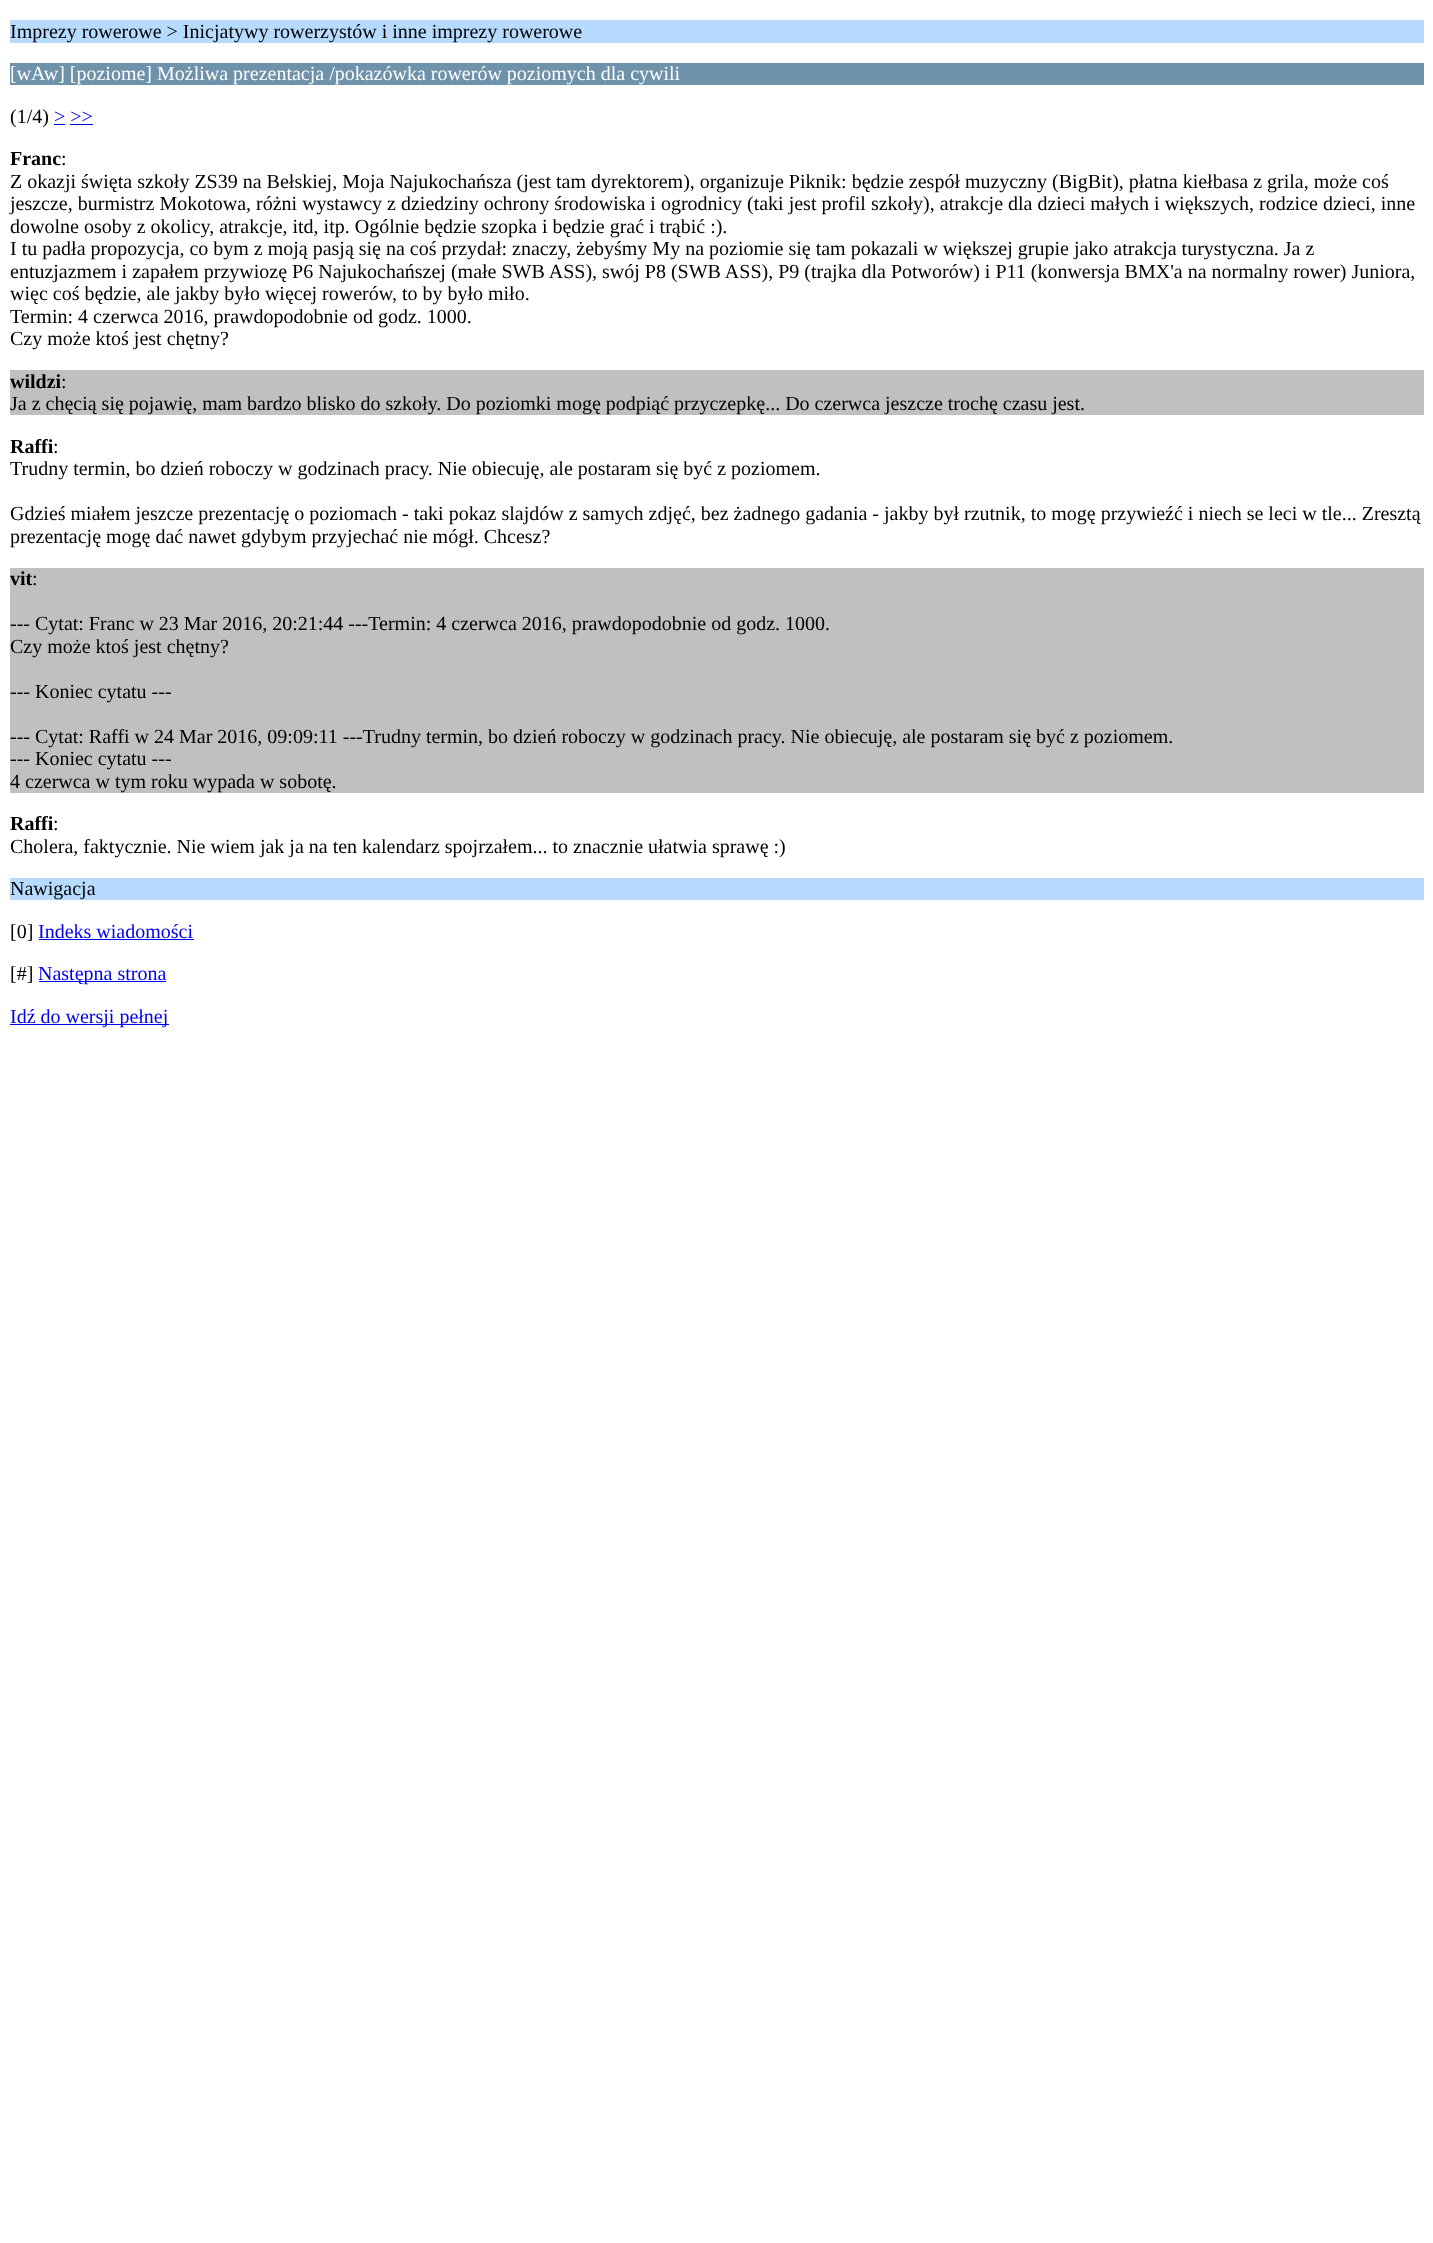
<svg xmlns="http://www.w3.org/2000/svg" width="1433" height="2243">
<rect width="100%" height="100%" fill="#fff"/>
<rect x="10" y="20" width="1414" height="23" fill="#b6dbff"/>
<text x="10" y="38" style="font-family:Liberation Serif;font-size:20px;fill:#000">Imprezy rowerowe &gt; Inicjatywy rowerzystów i inne imprezy rowerowe</text>
<rect x="10" y="63" width="1414" height="22" fill="#6d92aa"/>
<text x="10" y="80" style="font-family:Liberation Serif;font-size:20px;fill:#fff">[wAw] [poziome] Możliwa prezentacja /pokazówka rowerów poziomych dla cywili</text>
<text x="10" y="123" style="font-family:Liberation Serif;font-size:20px;fill:#000">(1/4)</text>
<text x="54" y="123" style="font-family:Liberation Serif;font-size:20px;fill:#00e">&gt; &gt;&gt;</text>
<rect x="54" y="124" width="11" height="1" fill="#00e"/>
<rect x="70" y="124" width="23" height="1" fill="#00e"/>
<text x="10" y="165" style="font-family:Liberation Serif;font-size:20px;font-weight:bold;fill:#000">Franc</text>
<text x="61" y="165" style="font-family:Liberation Serif;font-size:20px;fill:#000">:</text>
<text x="10" y="188" style="font-family:Liberation Serif;font-size:20px;fill:#000">Z okazji święta szkoły ZS39 na Bełskiej, Moja Najukochańsza (jest tam dyrektorem), organizuje Piknik: będzie zespół muzyczny (BigBit), płatna kiełbasa z grila, może coś</text>
<text x="10" y="210" style="font-family:Liberation Serif;font-size:20px;fill:#000">jeszcze, burmistrz Mokotowa, różni wystawcy z dziedziny ochrony środowiska i ogrodnicy (taki jest profil szkoły), atrakcje dla dzieci małych i większych, rodzice dzieci, inne</text>
<text x="10" y="233" style="font-family:Liberation Serif;font-size:20px;fill:#000">dowolne osoby z okolicy, atrakcje, itd, itp. Ogólnie będzie szopka i będzie grać i trąbić :).</text>
<text x="10" y="255" style="font-family:Liberation Serif;font-size:20px;fill:#000">I tu padła propozycja, co bym z moją pasją się na coś przydał: znaczy, żebyśmy My na poziomie się tam pokazali w większej grupie jako atrakcja turystyczna. Ja z</text>
<text x="10" y="278" style="font-family:Liberation Serif;font-size:20px;fill:#000">entuzjazmem i zapałem przywiozę P6 Najukochańszej (małe SWB ASS), swój P8 (SWB ASS), P9 (trajka dla Potworów) i P11 (konwersja BMX'a na normalny rower) Juniora,</text>
<text x="10" y="300" style="font-family:Liberation Serif;font-size:20px;fill:#000">więc coś będzie, ale jakby było więcej rowerów, to by było miło.</text>
<text x="10" y="323" style="font-family:Liberation Serif;font-size:20px;fill:#000">Termin: 4 czerwca 2016, prawdopodobnie od godz. 1000.</text>
<text x="10" y="345" style="font-family:Liberation Serif;font-size:20px;fill:#000">Czy może ktoś jest chętny?</text>
<rect x="10" y="370" width="1414" height="45" fill="#c0c0c0"/>
<text x="10" y="388" style="font-family:Liberation Serif;font-size:20px;font-weight:bold;fill:#000">wildzi</text>
<text x="61" y="388" style="font-family:Liberation Serif;font-size:20px;fill:#000">:</text>
<text x="10" y="410" style="font-family:Liberation Serif;font-size:20px;fill:#000">Ja z chęcią się pojawię, mam bardzo blisko do szkoły. Do poziomki mogę podpiąć przyczepkę... Do czerwca jeszcze trochę czasu jest.</text>
<text x="10" y="453" style="font-family:Liberation Serif;font-size:20px;font-weight:bold;fill:#000">Raffi</text>
<text x="53" y="453" style="font-family:Liberation Serif;font-size:20px;fill:#000">:</text>
<text x="10" y="475" style="font-family:Liberation Serif;font-size:20px;fill:#000">Trudny termin, bo dzień roboczy w godzinach pracy. Nie obiecuję, ale postaram się być z poziomem.</text>
<text x="10" y="520" style="font-family:Liberation Serif;font-size:20px;fill:#000">Gdzieś miałem jeszcze prezentację o poziomach - taki pokaz slajdów z samych zdjęć, bez żadnego gadania - jakby był rzutnik, to mogę przywieźć i niech se leci w tle... Zresztą</text>
<text x="10" y="543" style="font-family:Liberation Serif;font-size:20px;fill:#000">prezentację mogę dać nawet gdybym przyjechać nie mógł. Chcesz?</text>
<rect x="10" y="568" width="1414" height="225" fill="#c0c0c0"/>
<text x="10" y="585" style="font-family:Liberation Serif;font-size:20px;font-weight:bold;fill:#000">vit</text>
<text x="32" y="585" style="font-family:Liberation Serif;font-size:20px;fill:#000">:</text>
<text x="10" y="630" style="font-family:Liberation Serif;font-size:20px;fill:#000">--- Cytat: Franc w 23 Mar 2016, 20:21:44 ---Termin: 4 czerwca 2016, prawdopodobnie od godz. 1000.</text>
<text x="10" y="653" style="font-family:Liberation Serif;font-size:20px;fill:#000">Czy może ktoś jest chętny?</text>
<text x="10" y="698" style="font-family:Liberation Serif;font-size:20px;fill:#000">--- Koniec cytatu ---</text>
<text x="10" y="743" style="font-family:Liberation Serif;font-size:20px;fill:#000">--- Cytat: Raffi w 24 Mar 2016, 09:09:11 ---Trudny termin, bo dzień roboczy w godzinach pracy. Nie obiecuję, ale postaram się być z poziomem.</text>
<text x="10" y="765" style="font-family:Liberation Serif;font-size:20px;fill:#000">--- Koniec cytatu ---</text>
<text x="10" y="788" style="font-family:Liberation Serif;font-size:20px;fill:#000">4 czerwca w tym roku wypada w sobotę.</text>
<text x="10" y="830" style="font-family:Liberation Serif;font-size:20px;font-weight:bold;fill:#000">Raffi</text>
<text x="53" y="830" style="font-family:Liberation Serif;font-size:20px;fill:#000">:</text>
<text x="10" y="853" style="font-family:Liberation Serif;font-size:20px;fill:#000">Cholera, faktycznie. Nie wiem jak ja na ten kalendarz spojrzałem... to znacznie ułatwia sprawę :)</text>
<rect x="10" y="878" width="1414" height="22" fill="#b6dbff"/>
<text x="10" y="895" style="font-family:Liberation Serif;font-size:20px;fill:#000">Nawigacja</text>
<text x="10" y="938" style="font-family:Liberation Serif;font-size:20px;fill:#000">[0]</text>
<text x="38" y="938" style="font-family:Liberation Serif;font-size:20px;fill:#00e">Indeks wiadomości</text>
<rect x="39" y="939" width="155" height="1" fill="#00e"/>
<text x="10" y="980" style="font-family:Liberation Serif;font-size:20px;fill:#000">[#]</text>
<rect x="39" y="981" width="127" height="1" fill="#00e"/>
<text x="38" y="980" style="font-family:Liberation Serif;font-size:20px;fill:#00e">Następna strona</text>
<rect x="10" y="1024" width="159" height="1" fill="#00e"/>
<text x="10" y="1023" style="font-family:Liberation Serif;font-size:20px;fill:#00e">Idź do wersji pełnej</text>
</svg>
